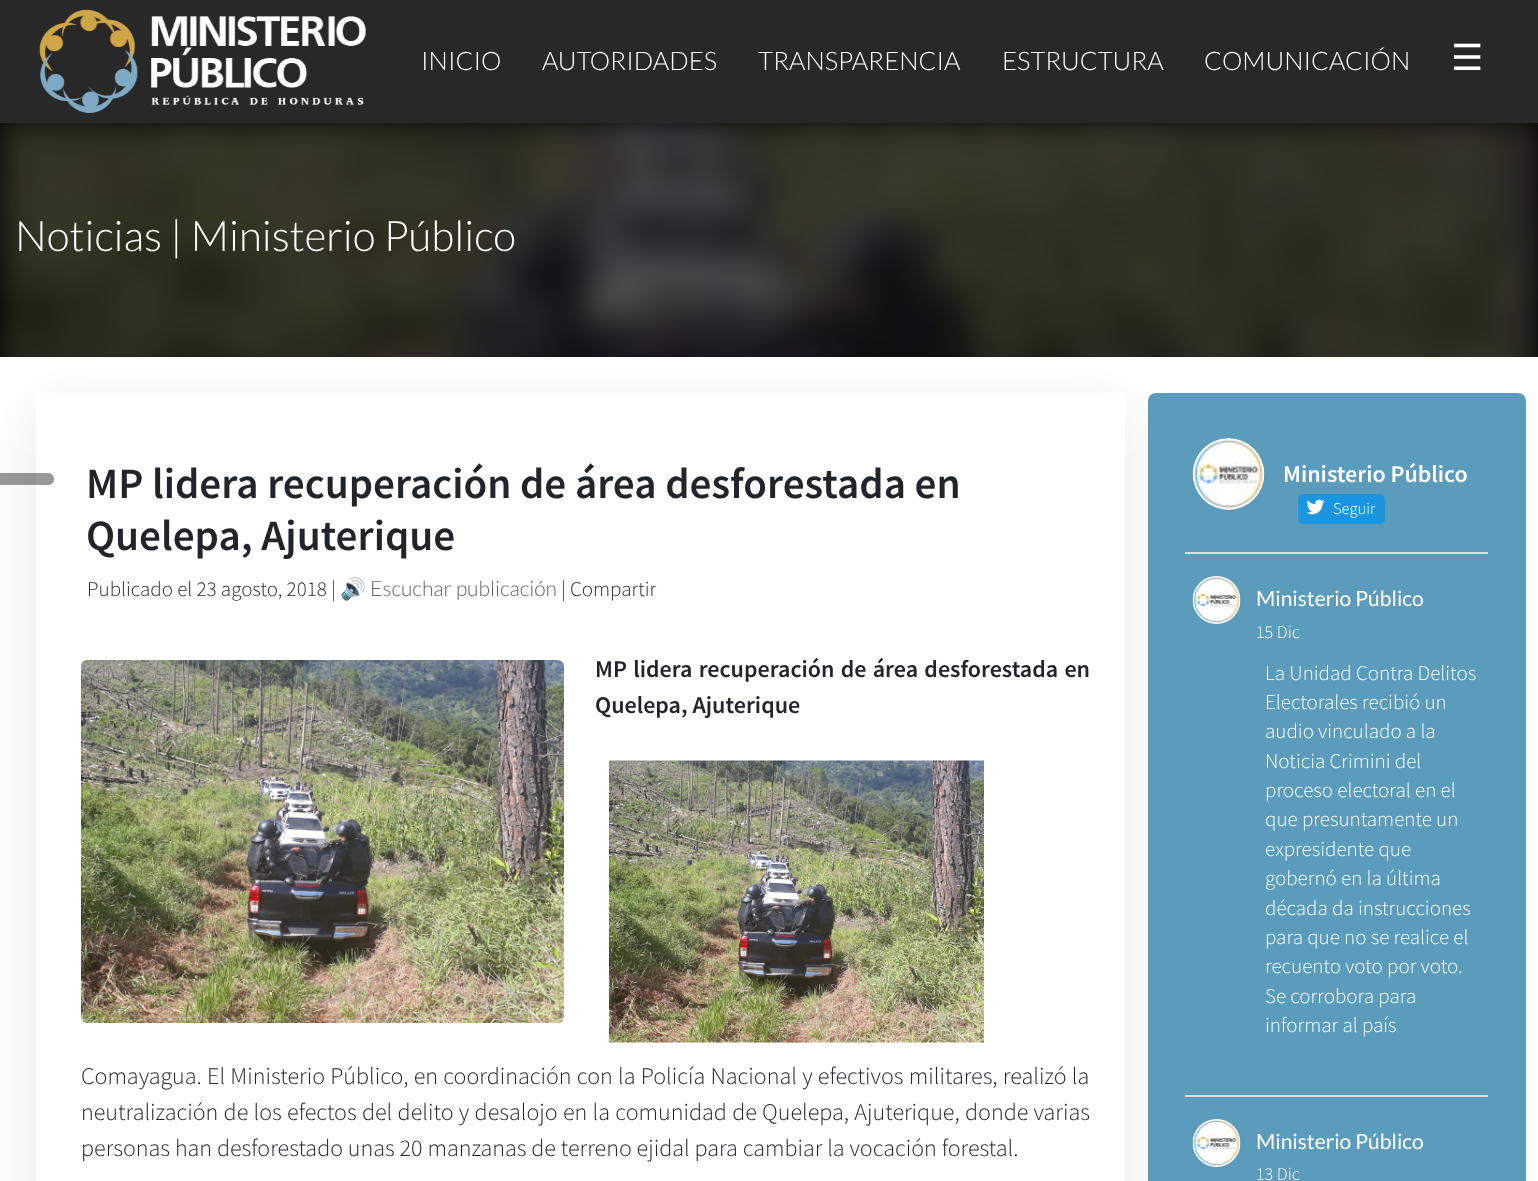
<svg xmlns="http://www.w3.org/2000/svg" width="1538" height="1181">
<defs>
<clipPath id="clip1"><path d="M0 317h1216v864h-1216zm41 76h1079c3 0 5 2 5 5v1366c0 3-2 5-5 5h-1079c-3 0-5-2-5-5v-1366c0-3 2-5 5-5z" clip-rule="evenodd"/></clipPath>
</defs>
<rect width="100%" height="100%" fill="#fff"/>
<rect width="1538" height="123" fill="#282828"/>
<image x="39" y="9" width="327" height="104" href="media/1.png"/>
<text x="421" y="70" style="font-family:Lato;font-size:25.5px;font-weight:300;fill:#fff">INICIO</text>
<text x="542" y="70" style="font-family:Lato;font-size:25.5px;font-weight:300;fill:#fff">AUTORIDADES</text>
<text x="758" y="70" style="font-family:Lato;font-size:25.5px;font-weight:300;fill:#fff">TRANSPARENCIA</text>
<text x="1002" y="70" style="font-family:Lato;font-size:25.5px;font-weight:300;fill:#fff">ESTRUCTURA</text>
<text x="1204" y="70" style="font-family:Lato;font-size:25.5px;font-weight:300;fill:#fff">COMUNICACIÓN</text>
<text x="1451" y="70" style="font-family:DejaVu Sans;font-size:36px;fill:#fff">☰</text>
<rect y="123" width="1538" height="234" fill="#000"/>
<image x="0" y="123" width="1538" height="234" href="media/2.png"/>
<text x="15" y="251" style="font-family:Lato;font-size:42px;font-weight:300;fill:#fff">Noticias | Ministerio Público</text>
<g clip-path="url(#clip1)">
<rect x="36" y="408" width="1089" height="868" rx="5" fill="#00000014" filter="blur(30px)"/>
</g>
<path d="M0 473h48c3.5 0 6 2.5 6 6c0 3.5-2.5 6-6 6h-48z" fill="#00000066"/>
<text x="86" y="498" style="font-family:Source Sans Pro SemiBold;font-size:43.2px;font-weight:600;fill:#212529">MP lidera recuperación de área desforestada en</text>
<text x="86" y="550" style="font-family:Source Sans Pro SemiBold;font-size:43.2px;font-weight:600;fill:#212529">Quelepa, Ajuterique</text>
<text x="87" y="596" style="font-family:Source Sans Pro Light;font-size:21px;font-weight:300;fill:#282828">Publicado el 23 agosto, 2018 |</text>
<text x="340" y="596" style="font-family:Noto Color Emoji;font-size:21px;fill:#666">🔊</text>
<text x="370" y="596" style="font-family:Lato;font-size:21px;font-weight:300;fill:#666">Escuchar publicación</text>
<text x="561" y="596" style="font-family:Source Sans Pro Light;font-size:21px;font-weight:300;fill:#282828">| Compartir</text>
<text x="595" y="677" word-spacing="1.5" style="font-family:Source Sans Pro SemiBold;font-size:24px;font-weight:600;fill:#212529">MP lidera recuperación de área desforestada en</text>
<text x="595" y="713" style="font-family:Source Sans Pro SemiBold;font-size:24px;font-weight:600;fill:#212529">Quelepa, Ajuterique</text>
<image x="609" y="760" width="375" height="283" href="media/3.png"/>
<text x="81" y="1084" word-spacing="0.4" style="font-family:Source Sans Pro Light;font-size:24px;font-weight:300;fill:#212529">Comayagua. El Ministerio Público, en coordinación con la Policía Nacional y efectivos militares, realizó la</text>
<text x="81" y="1120" word-spacing="0.5" style="font-family:Source Sans Pro Light;font-size:24px;font-weight:300;fill:#212529">neutralización de los efectos del delito y desalojo en la comunidad de Quelepa, Ajuterique, donde varias</text>
<text x="81" y="1156" style="font-family:Source Sans Pro Light;font-size:24px;font-weight:300;fill:#212529">personas han desforestado unas 20 manzanas de terreno ejidal para cambiar la vocación forestal.</text>
<image x="81" y="660" width="483" height="363" href="media/4.png"/>
<rect x="1148" y="393" width="378" height="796" rx="8" fill="#5b9cbc"/>
<rect x="1185" y="552" width="303" height="2" fill="#ddd"/>
<image x="1192" y="438" width="73" height="72" href="media/5.png"/>
<text x="1283" y="482" style="font-family:Source Sans Pro SemiBold;font-size:24px;font-weight:600;fill:#fff">Ministerio Público</text>
<rect x="1298" y="494" width="87" height="30" rx="5" fill="#1b95e0"/>
<image x="1306" y="499" width="19" height="16" href="media/6.png"/>
<text x="1333" y="514" style="font-family:Source Sans Pro Light;font-size:16.5px;font-weight:300;fill:#fff">Seguir</text>
<rect x="1185" y="1095" width="303" height="2" fill="#ddd"/>
<image x="1192" y="576" width="49" height="48" href="media/7.png"/>
<text x="1256" y="606" style="font-family:Lato;font-size:21px;fill:#fff">Ministerio Público</text>
<text x="1256" y="638" style="font-family:Source Sans Pro Light;font-size:18px;font-weight:300;fill:#fff">15 Dic</text>
<text x="1265" y="680" style="font-family:Source Sans Pro Light;font-size:21px;font-weight:300;fill:#fff">La Unidad Contra Delitos</text>
<text x="1265" y="709" style="font-family:Source Sans Pro Light;font-size:21px;font-weight:300;fill:#fff">Electorales recibió un</text>
<text x="1265" y="738" style="font-family:Source Sans Pro Light;font-size:21px;font-weight:300;fill:#fff">audio vinculado a la</text>
<text x="1265" y="768" style="font-family:Source Sans Pro Light;font-size:21px;font-weight:300;fill:#fff">Noticia Crimini del</text>
<text x="1265" y="797" style="font-family:Source Sans Pro Light;font-size:21px;font-weight:300;fill:#fff">proceso electoral en el</text>
<text x="1265" y="826" style="font-family:Source Sans Pro Light;font-size:21px;font-weight:300;fill:#fff">que presuntamente un</text>
<text x="1265" y="856" style="font-family:Source Sans Pro Light;font-size:21px;font-weight:300;fill:#fff">expresidente que</text>
<text x="1265" y="885" style="font-family:Source Sans Pro Light;font-size:21px;font-weight:300;fill:#fff">gobernó en la última</text>
<text x="1265" y="915" style="font-family:Source Sans Pro Light;font-size:21px;font-weight:300;fill:#fff">década da instrucciones</text>
<text x="1265" y="944" style="font-family:Source Sans Pro Light;font-size:21px;font-weight:300;fill:#fff">para que no se realice el</text>
<text x="1265" y="973" style="font-family:Source Sans Pro Light;font-size:21px;font-weight:300;fill:#fff">recuento voto por voto.</text>
<text x="1265" y="1003" style="font-family:Source Sans Pro Light;font-size:21px;font-weight:300;fill:#fff">Se corrobora para</text>
<text x="1265" y="1032" style="font-family:Source Sans Pro Light;font-size:21px;font-weight:300;fill:#fff">informar al país</text>
<image x="1192" y="1119" width="49" height="48" href="media/7.png"/>
<text x="1256" y="1149" style="font-family:Lato;font-size:21px;fill:#fff">Ministerio Público</text>
<text x="1256" y="1180" style="font-family:Source Sans Pro Light;font-size:18px;font-weight:300;fill:#fff">13 Dic</text>
</svg>
